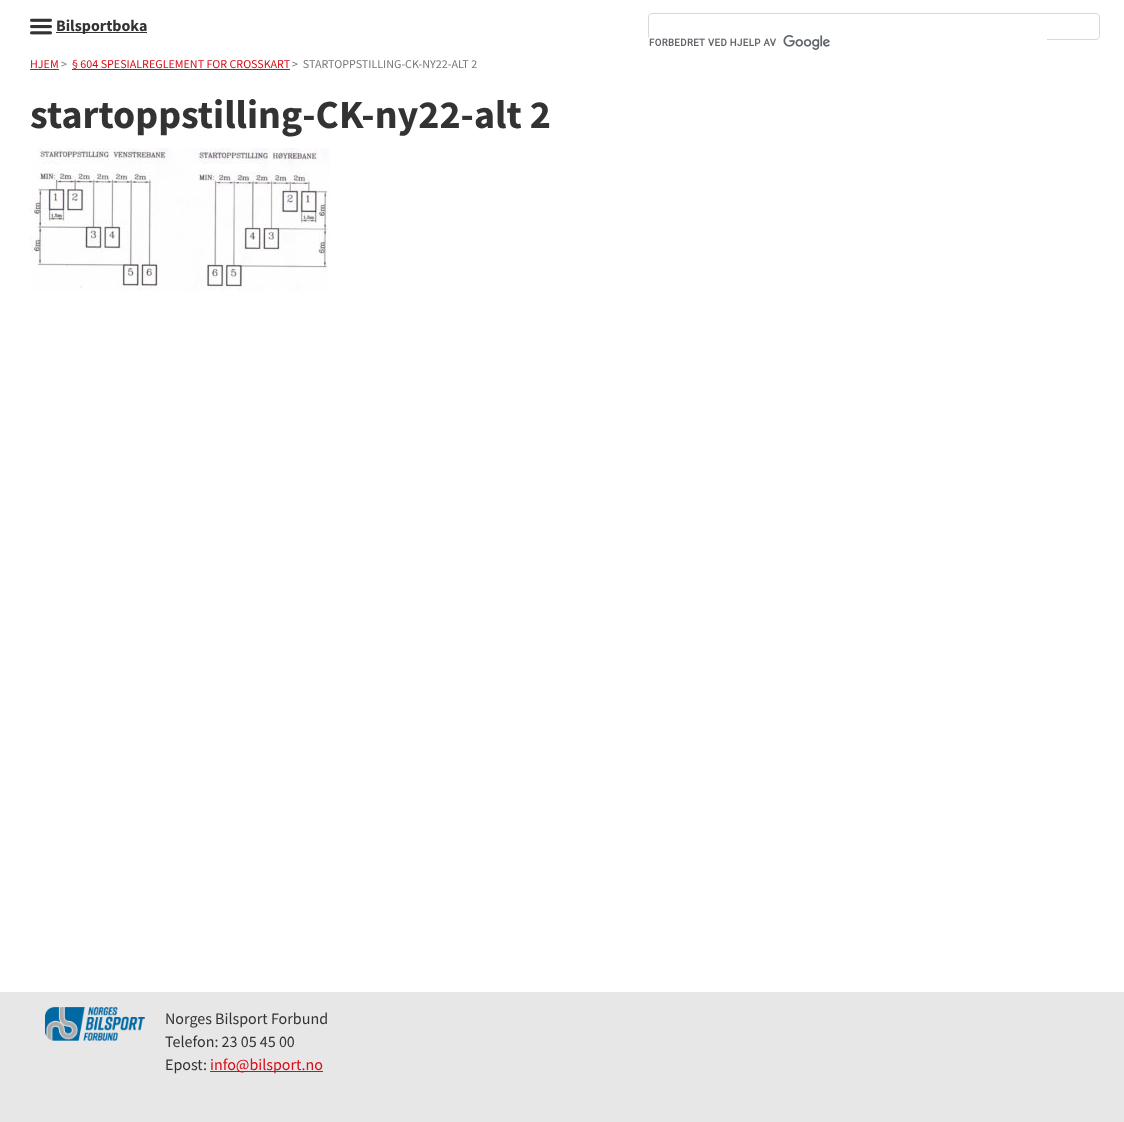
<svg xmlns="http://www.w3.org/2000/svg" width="1124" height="1122">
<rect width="100%" height="100%" fill="#fff"/>
<image x="30" y="18" width="22" height="17" href="media/1.png"/>
<rect x="56" y="32" width="91" height="1" fill="#333"/>
<text x="56" y="31" style="font-family:Source Sans Pro;font-size:16px;font-weight:bold;fill:#333">Bilsportboka</text>
<rect x="648.5" y="13.5" width="451" height="26" rx="3.5" fill="none" stroke="#d9d9d9"/>
<rect x="649" y="36" width="398" height="4" fill="#fff"/>
<image x="649" y="35" width="181" height="15" href="media/2.png"/>
<text x="30" y="68" style="font-family:Source Sans Pro;font-size:12px;fill:#d90b15">HJEM</text>
<rect x="30" y="69" width="29" height="1" fill="#d90b15"/>
<text x="61" y="68" style="font-family:Source Sans Pro;font-size:12px;fill:#777">&gt;</text>
<text x="72" y="68" style="font-family:Source Sans Pro;font-size:12px;fill:#d90b15">§ 604 SPESIALREGLEMENT FOR CROSSKART</text>
<rect x="72" y="69" width="218" height="1" fill="#d90b15"/>
<text x="292" y="68" style="font-family:Source Sans Pro;font-size:12px;fill:#777" xml:space="preserve">&gt;  STARTOPPSTILLING-CK-NY22-ALT 2</text>
<text x="30" y="128" style="font-family:Source Sans Pro;font-size:40px;font-weight:bold;fill:#333">startoppstilling-CK-ny22-alt 2</text>
<image x="30" y="148" width="300" height="143" href="media/3.png"/>
<rect y="992" width="1124" height="130" fill="#e7e7e7"/>
<image x="45" y="1007" width="100" height="34" href="media/4.png"/>
<text x="165" y="1024" style="font-family:Source Sans Pro;font-size:16px;fill:#333">Norges Bilsport Forbund</text>
<text x="165" y="1047" style="font-family:Source Sans Pro;font-size:16px;fill:#333">Telefon: 23 05 45 00</text>
<text x="165" y="1070" style="font-family:Source Sans Pro;font-size:16px;fill:#333">Epost:</text>
<rect x="210" y="1071" width="113" height="1" fill="#d90b15"/>
<text x="210" y="1070" style="font-family:Source Sans Pro;font-size:16px;fill:#d90b15">info@bilsport.no</text>
</svg>
